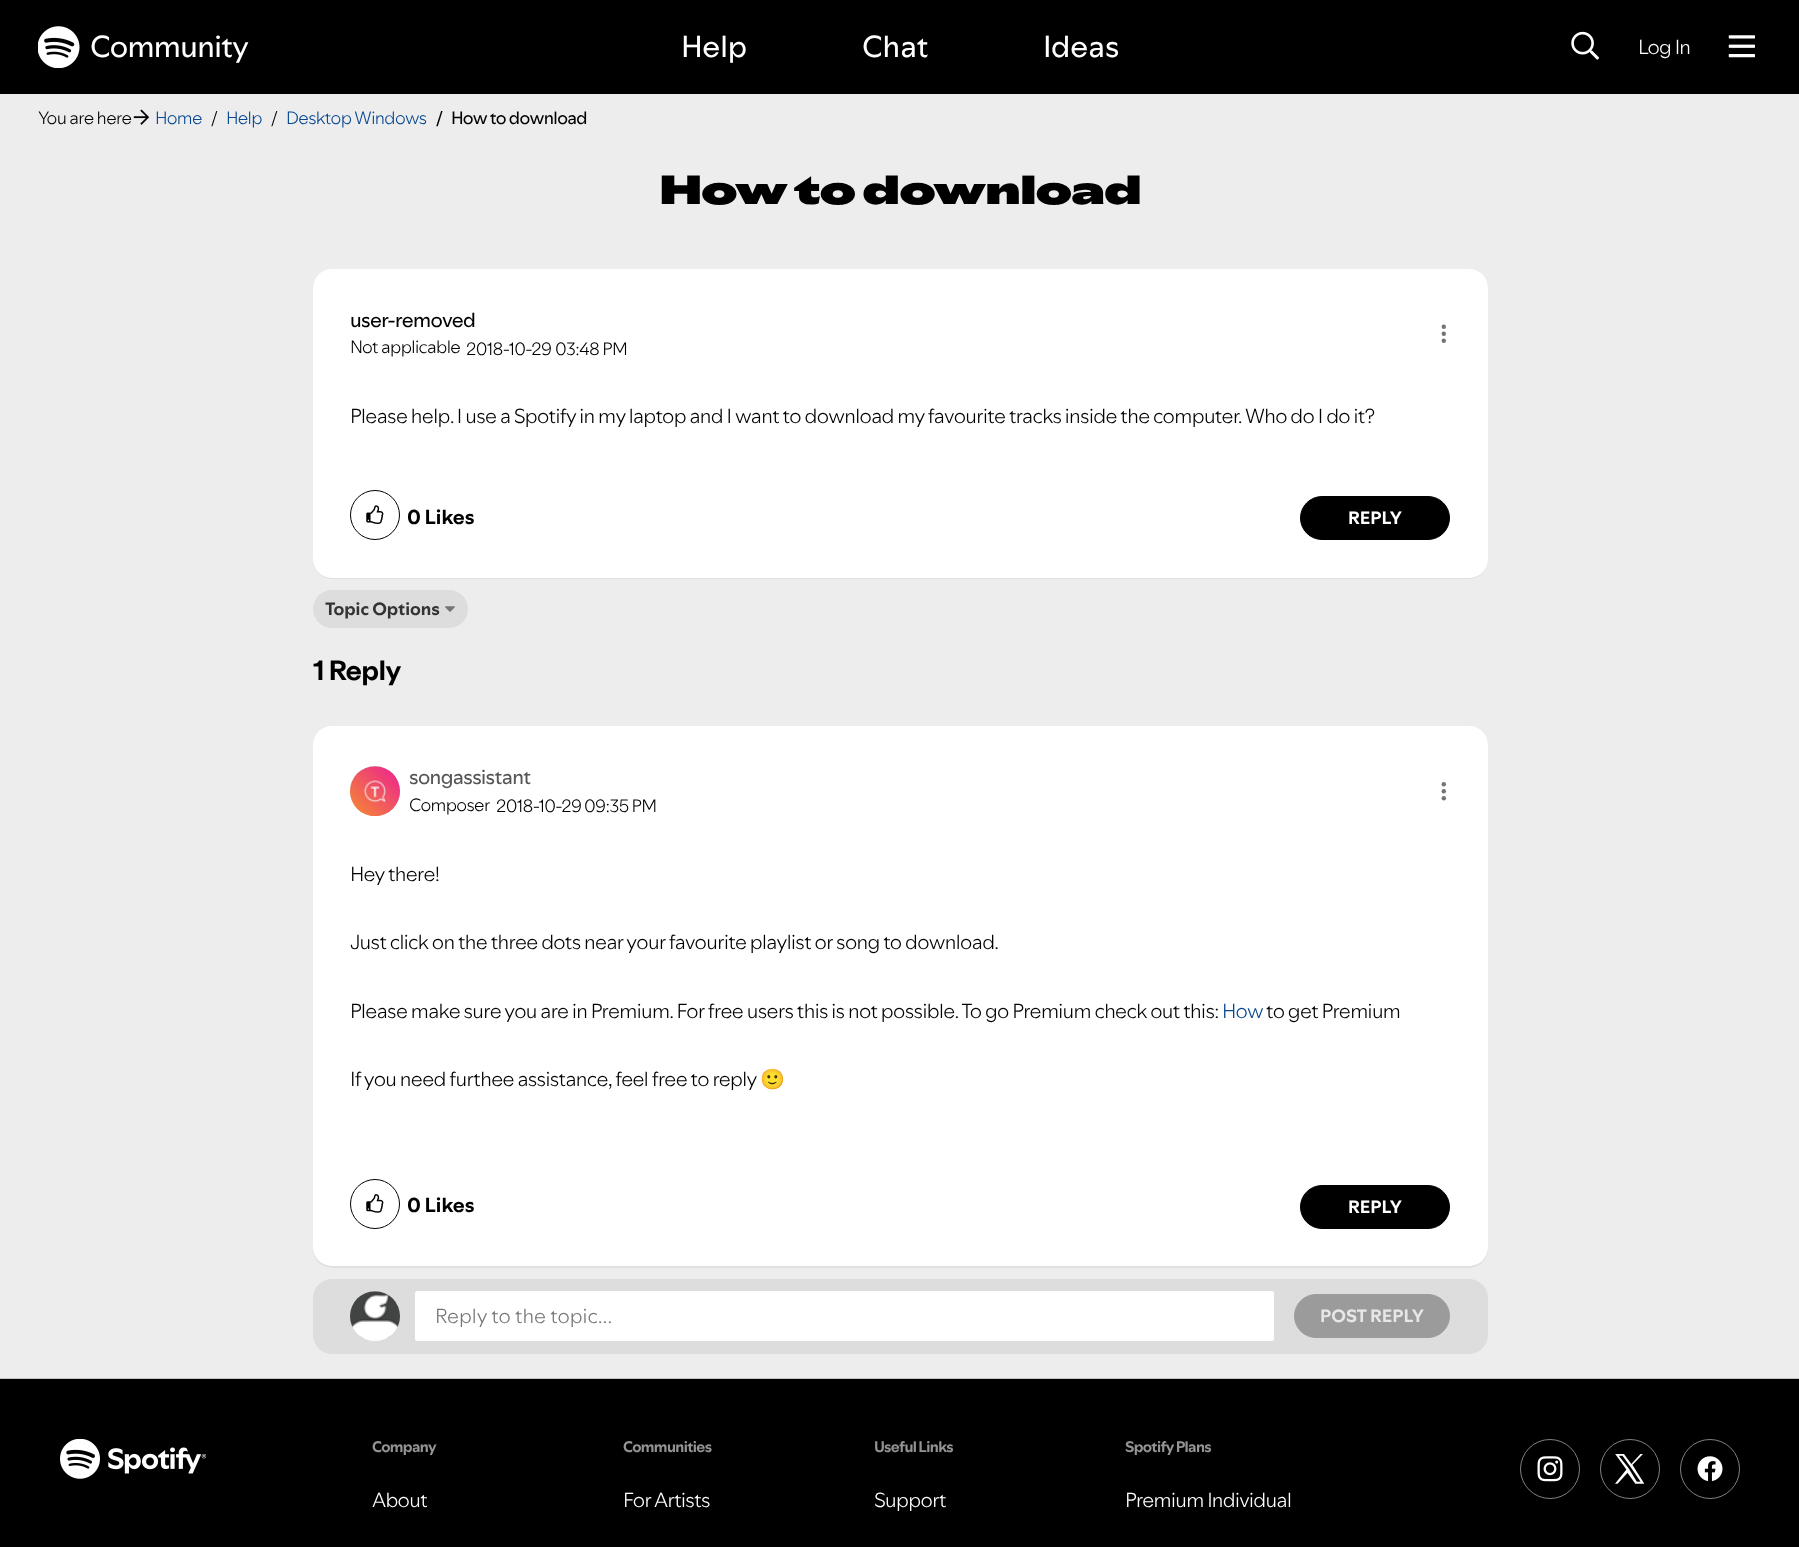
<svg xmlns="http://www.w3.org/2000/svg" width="1799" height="1547">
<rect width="100%" height="100%" fill="#ededed"/>
<rect width="1799" height="94" fill="#000"/>
<image x="38" y="26" width="42" height="42" href="media/1.png"/>
<text x="90" y="57" style="font-family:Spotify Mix;font-size:30px;letter-spacing:-0.62px;fill:#fff">Community</text>
<text x="681" y="57" style="font-family:Spotify Mix;font-size:30px;fill:#fff">Help</text>
<text x="862" y="57" style="font-family:Spotify Mix;font-size:30px;fill:#fff">Chat</text>
<text x="1043" y="57" style="font-family:Spotify Mix;font-size:30px;fill:#fff">Ideas</text>
<image x="1571" y="31" width="29" height="29" href="media/2.png"/>
<text x="1638" y="54" style="font-family:Spotify Mix;font-size:20px;font-weight:300;letter-spacing:-0.62px;fill:#fff">Log In</text>
<image x="1728" y="35" width="27" height="23" href="media/3.png"/>
<text x="38" y="124" style="font-family:Spotify Mix;font-size:17.5px;font-weight:300;letter-spacing:-0.62px;fill:#000">You are here</text>
<image x="133" y="109" width="16" height="16" href="media/4.png"/>
<text x="155" y="124" style="font-family:Spotify Mix;font-size:17.5px;font-weight:300;letter-spacing:-0.62px;fill:#084791">Home</text>
<text x="211" y="124" style="font-family:Spotify Mix;font-size:17.5px;font-weight:300;letter-spacing:-0.62px;fill:#000">/</text>
<text x="226" y="124" style="font-family:Spotify Mix;font-size:17.5px;font-weight:300;letter-spacing:-0.62px;fill:#084791">Help</text>
<text x="271" y="124" style="font-family:Spotify Mix;font-size:17.5px;font-weight:300;letter-spacing:-0.62px;fill:#000">/</text>
<text x="286" y="124" style="font-family:Spotify Mix;font-size:17.5px;font-weight:300;letter-spacing:-0.62px;fill:#084791">Desktop Windows</text>
<text x="436" y="124" style="font-family:Spotify Mix;font-size:17.5px;letter-spacing:-0.62px;fill:#000">/</text>
<text x="451" y="124" style="font-family:Spotify Mix;font-size:17.5px;letter-spacing:-0.62px;fill:#000">How to download</text>
<text x="659" y="204" style="font-family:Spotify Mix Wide;font-size:40px;font-weight:900;letter-spacing:-0.62px;fill:#000">How to download</text>
<rect x="313" y="270" width="1175" height="309" rx="19" fill="#0000000d" filter="blur(0.5px)"/>
<rect x="313" y="269" width="1175" height="309" rx="19" fill="#fff"/>
<text x="350" y="327" style="font-family:Spotify Mix;font-size:20px;letter-spacing:-0.62px;fill:#000">user-removed</text>
<text x="350" y="353" style="font-family:Spotify Mix;font-size:17.5px;font-weight:300;letter-spacing:-0.62px;fill:#000">Not applicable</text>
<text x="466" y="355" style="font-family:Spotify Mix;font-size:17.5px;font-weight:300;letter-spacing:-0.62px;fill:#000">2018-10-29</text>
<text x="555" y="355" style="font-family:Spotify Mix;font-size:17.5px;font-weight:300;letter-spacing:-0.62px;fill:#000">03:48 PM</text>
<circle cx="1443.8" cy="326.8" r="2.2" fill="#747474"/>
<circle cx="1443.8" cy="333.8" r="2.2" fill="#747474"/>
<circle cx="1443.8" cy="340.7" r="2.2" fill="#747474"/>
<text x="350" y="423" style="font-family:Spotify Mix;font-size:20px;font-weight:300;letter-spacing:-0.62px;fill:#000">Please help. I use a Spotify in my laptop and I want to download my favourite tracks inside the computer. Who do I do it?</text>
<circle cx="375" cy="515" r="24.5" fill="none" stroke="#000"/>
<image x="366" y="505" width="18" height="19" href="media/5.png"/>
<text x="407" y="524" style="font-family:Spotify Mix;font-size:20px;font-weight:bold;fill:#000">0 Likes</text>
<rect x="1300.5" y="496.5" width="149" height="43" rx="21.5" fill="#000" stroke="#000"/>
<text x="1348" y="524" style="font-family:Spotify Mix;font-size:17.5px;font-weight:bold;fill:#fff">REPLY</text>
<rect x="313" y="590" width="155" height="38" rx="19" fill="#ddd"/>
<text x="325" y="615" style="font-family:Spotify Mix;font-size:17.5px;font-weight:bold;fill:#333">Topic Options</text>
<image x="445" y="606" width="10" height="6" href="media/6.png"/>
<text x="313" y="680" style="font-family:Spotify Mix;font-size:27.5px;font-weight:bold;letter-spacing:-0.62px;fill:#000">1 Reply</text>
<rect x="313" y="728" width="1175" height="540" rx="19" fill="#0000000d" filter="blur(0.5px)"/>
<rect x="313" y="726" width="1175" height="540" rx="19" fill="#fff"/>
<rect x="350" y="766" width="50" height="50" rx="25" fill="#c4c4c4" filter="blur(0.5px)"/>
<image x="350" y="766" width="50" height="51" href="media/7.png"/>
<text x="409" y="784" style="font-family:Spotify Mix;font-size:20px;letter-spacing:-0.62px;fill:#555">songassistant</text>
<text x="409" y="811" style="font-family:Spotify Mix;font-size:17.5px;font-weight:300;letter-spacing:-0.62px;fill:#000">Composer</text>
<text x="496" y="812" style="font-family:Spotify Mix;font-size:17.5px;font-weight:300;letter-spacing:-0.62px;fill:#000">2018-10-29</text>
<text x="584" y="812" style="font-family:Spotify Mix;font-size:17.5px;font-weight:300;letter-spacing:-0.62px;fill:#000">09:35 PM</text>
<circle cx="1443.8" cy="784.3" r="2.2" fill="#747474"/>
<circle cx="1443.8" cy="791.2" r="2.2" fill="#747474"/>
<circle cx="1443.8" cy="798.2" r="2.2" fill="#747474"/>
<text x="350" y="881" style="font-family:Spotify Mix;font-size:20px;font-weight:300;letter-spacing:-0.62px;fill:#000">Hey there!</text>
<text x="350" y="949" style="font-family:Spotify Mix;font-size:20px;font-weight:300;letter-spacing:-0.62px;fill:#000">Just click on the three dots near your favourite playlist or song to download.</text>
<text x="350" y="1018" style="font-family:Spotify Mix;font-size:20px;font-weight:300;letter-spacing:-0.62px;fill:#000">Please make sure you are in Premium. For free users this is not possible. To go Premium check out this:</text>
<text x="1222" y="1018" style="font-family:Spotify Mix;font-size:20px;font-weight:300;letter-spacing:-0.62px;fill:#084791">How</text>
<text x="1266" y="1018" style="font-family:Spotify Mix;font-size:20px;font-weight:300;letter-spacing:-0.62px;fill:#000">to get Premium</text>
<text x="350" y="1086" style="font-family:Spotify Mix;font-size:20px;font-weight:300;letter-spacing:-0.62px;fill:#000">If you need furthee assistance, feel free to reply</text>
<text x="760" y="1086" style="font-family:Noto Color Emoji;font-size:20px;letter-spacing:-0.62px;fill:#000">🙂</text>
<circle cx="375" cy="1204" r="24.5" fill="none" stroke="#000"/>
<image x="366" y="1194" width="18" height="19" href="media/8.png"/>
<text x="407" y="1212" style="font-family:Spotify Mix;font-size:20px;font-weight:bold;fill:#000">0 Likes</text>
<rect x="1300.5" y="1185.5" width="149" height="43" rx="21.5" fill="#000" stroke="#000"/>
<text x="1348" y="1213" style="font-family:Spotify Mix;font-size:17.5px;font-weight:bold;fill:#fff">REPLY</text>
<rect x="313" y="1279" width="1175" height="75" rx="19" fill="#ddd"/>
<rect x="350" y="1291" width="50" height="50" rx="25" fill="#c4c4c4" filter="blur(0.5px)"/>
<image x="350" y="1291" width="50" height="50" href="media/9.png"/>
<rect x="415" y="1291" width="859" height="50" rx="2.5" fill="#fff"/>
<text x="435" y="1323" style="font-family:Spotify Mix;font-size:20px;font-weight:300;fill:#767676">Reply to the topic...</text>
<rect x="1294.5" y="1294.5" width="155" height="43" rx="21.5" fill="#9b9b9b" stroke="#9b9b9b"/>
<text x="1320" y="1322" style="font-family:Spotify Mix;font-size:17.5px;font-weight:bold;fill:#e7e7e7">POST REPLY</text>
<rect y="1378" width="1799" height="1" fill="#c4c4c4"/>
<rect y="1379" width="1799" height="168" fill="#000"/>
<image x="60" y="1439" width="146" height="40" href="media/10.png"/>
<text x="372" y="1452" style="font-family:Spotify Mix;font-size:15px;font-weight:bold;letter-spacing:-0.62px;fill:#939393">Company</text>
<text x="372" y="1507" style="font-family:Spotify Mix;font-size:20px;font-weight:300;letter-spacing:-0.62px;fill:#fff">About</text>
<text x="623" y="1452" style="font-family:Spotify Mix;font-size:15px;font-weight:bold;letter-spacing:-0.62px;fill:#939393">Communities</text>
<text x="623" y="1507" style="font-family:Spotify Mix;font-size:20px;font-weight:300;letter-spacing:-0.62px;fill:#fff">For Artists</text>
<text x="874" y="1452" style="font-family:Spotify Mix;font-size:15px;font-weight:bold;letter-spacing:-0.62px;fill:#939393">Useful Links</text>
<text x="874" y="1507" style="font-family:Spotify Mix;font-size:20px;font-weight:300;letter-spacing:-0.62px;fill:#fff">Support</text>
<text x="1125" y="1452" style="font-family:Spotify Mix;font-size:15px;font-weight:bold;letter-spacing:-0.62px;fill:#939393">Spotify Plans</text>
<text x="1125" y="1507" style="font-family:Spotify Mix;font-size:20px;font-weight:300;letter-spacing:-0.62px;fill:#fff">Premium Individual</text>
<circle cx="1550" cy="1469" r="29.5" fill="none" stroke="#818181"/>
<image x="1537" y="1456" width="26" height="26" href="media/11.png"/>
<circle cx="1630" cy="1469" r="29.5" fill="none" stroke="#818181"/>
<image x="1615" y="1454" width="30" height="30" href="media/12.png"/>
<circle cx="1710" cy="1469" r="29.5" fill="none" stroke="#818181"/>
<image x="1697" y="1456" width="26" height="25" href="media/13.png"/>
</svg>
